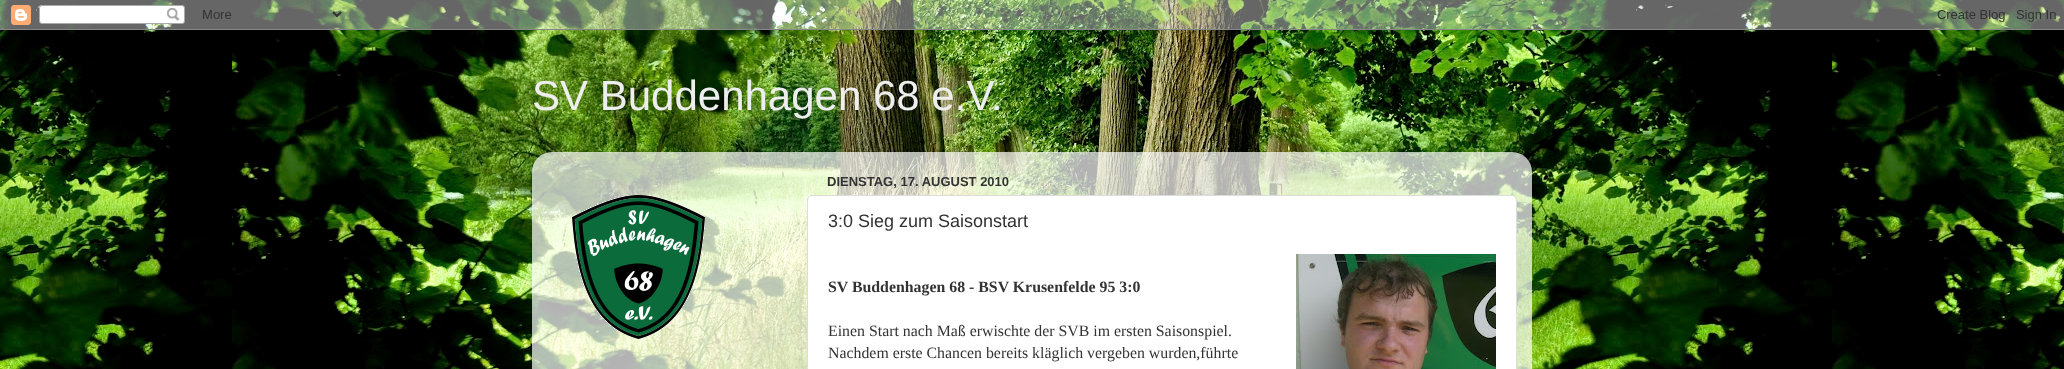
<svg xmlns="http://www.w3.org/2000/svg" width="2064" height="369">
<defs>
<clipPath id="clip1"><path d="M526 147h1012v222h-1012zm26 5h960c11 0 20 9 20 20v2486h-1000v-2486c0-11 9-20 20-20z" clip-rule="evenodd"/></clipPath>
</defs>
<rect width="100%" height="100%" fill="#fff"/>
<image x="0" y="0" width="2064" height="369" href="media/1.png"/>
<image x="0" y="0" width="2064" height="30" href="media/2.png"/>
<text x="532" y="110" style="font-family:Liberation Sans;font-size:42px;fill:#eee">SV Buddenhagen 68 e.V.</text>
<g clip-path="url(#clip1)">
<rect x="532" y="153" width="1000" height="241" rx="20" fill="#00000026" filter="blur(1.5px)"/>
</g>
<image x="532" y="152" width="1000" height="217" href="media/3.png"/>
<image x="572" y="195" width="133" height="144" href="media/4.png"/>
<text x="827" y="186" style="font-family:Liberation Sans;font-size:13px;font-weight:bold;fill:#333">DIENSTAG, 17. AUGUST 2010</text>
<rect x="807.5" y="195.5" width="709" height="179" rx="4.5" fill="#fff" stroke="#ddd"/>
<text x="828" y="227" style="font-family:Liberation Sans;font-size:18px;fill:#333">3:0 Sieg zum Saisonstart</text>
<text x="828" y="292" style="font-family:Liberation Serif;font-size:15.85px;font-weight:bold;fill:#333">SV Buddenhagen 68 - BSV Krusenfelde 95 3:0</text>
<image x="1296" y="254" width="200" height="115" href="media/5.png"/>
<text x="828" y="336" style="font-family:Liberation Serif;font-size:15.85px;fill:#333">Einen Start nach Maß erwischte der SVB im ersten Saisonspiel.</text>
<text x="828" y="358" style="font-family:Liberation Serif;font-size:15.85px;fill:#333">Nachdem erste Chancen bereits kläglich vergeben wurden,führte</text>
</svg>
